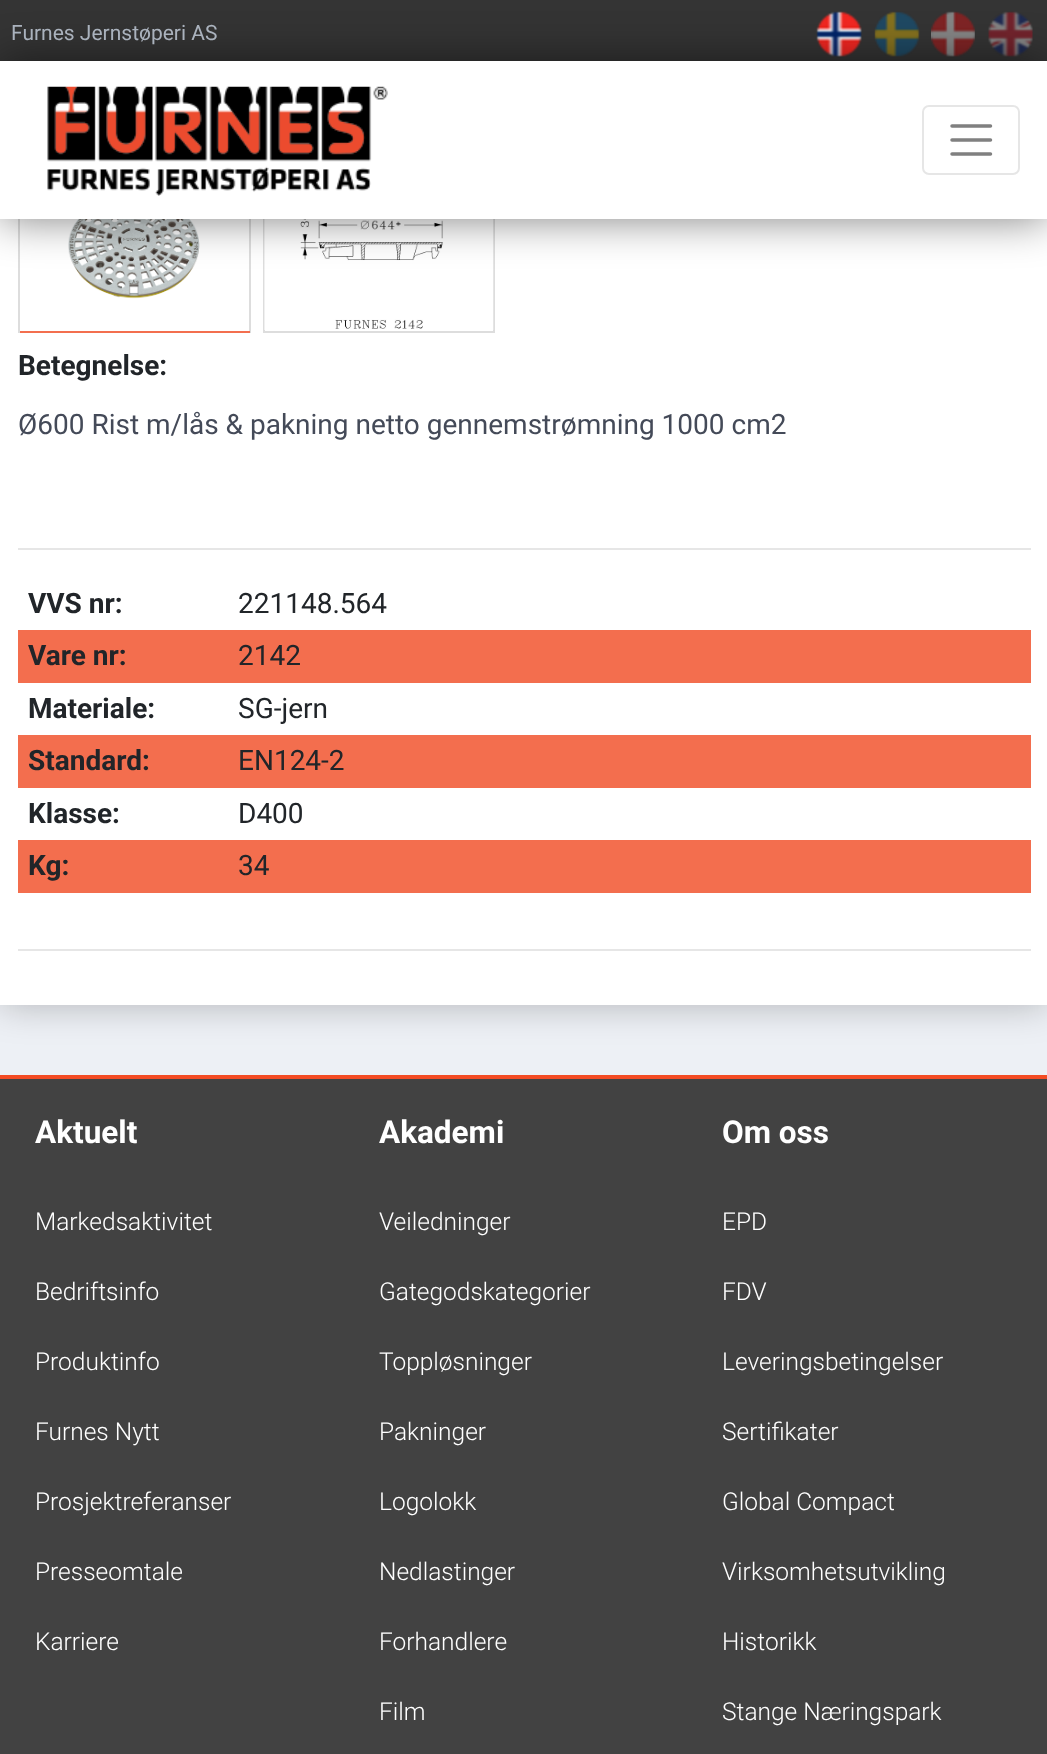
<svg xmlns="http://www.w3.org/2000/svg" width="1047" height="1754">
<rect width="100%" height="100%" fill="#edf0f5"/>
<rect y="-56" width="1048" height="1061" fill="#00000040" filter="blur(18.5px)"/>
<rect width="1047" height="61" fill="#343434"/>
<image x="816" y="11" width="46" height="46" href="media/2.png"/>
<image x="874" y="11" width="46" height="46" href="media/3.png"/>
<image x="931" y="11" width="44" height="46" href="media/4.png"/>
<image x="988" y="11" width="45" height="46" href="media/5.png"/>
<rect y="219" width="1047" height="786" fill="#fff"/>
<rect x="249" y="219" width="2" height="114" fill="#ddd"/>
<rect x="18" y="331" width="232" height="2" fill="#f36f4f"/>
<rect x="18" y="219" width="2" height="114" fill="#ddd"/>
<image x="68" y="219" width="132" height="80" href="media/6.png"/>
<rect x="264" y="171" width="230" height="161" fill="none" stroke="#ddd" stroke-width="2"/>
<image x="264" y="219" width="230" height="111" href="media/7.png"/>
<rect y="61" width="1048" height="158" fill="#00000080" filter="blur(22px)"/>
<rect y="61" width="1047" height="158" fill="#fff"/>
<image x="47" y="86" width="341" height="110" href="media/1.png"/>
<rect x="923" y="106" width="96" height="68" rx="6" fill="none" stroke="#e6e6e6" stroke-width="2"/>
<path d="M952 126h38.5m-38.5 14h38.5m-38.5 14h38.5" fill="none" stroke="#808080" stroke-width="3.5" stroke-linecap="round"/>
<text x="11" y="40" style="font-family:Roboto;font-size:21px;fill:#aab2bd">Furnes Jernstøperi AS</text>
<text x="18" y="375" style="font-family:Roboto;font-size:28px;font-weight:bold;fill:#212529">Betegnelse:</text>
<text x="18" y="434" style="font-family:Roboto;font-size:28px;fill:#444a58">Ø600 Rist m/lås &amp; pakning netto gennemstrømning 1000 cm2</text>
<rect x="18" y="548" width="1013" height="2" fill="#e6e6e6"/>
<text x="28" y="613" style="font-family:Roboto;font-size:28px;font-weight:bold;fill:#212529">VVS nr:</text>
<text x="238" y="613" style="font-family:Roboto;font-size:28px;fill:#212529">221148.564</text>
<rect x="18" y="630" width="1013" height="53" fill="#f36e4e"/>
<text x="28" y="665" style="font-family:Roboto;font-size:28px;font-weight:bold;fill:#212529">Vare nr:</text>
<text x="238" y="665" style="font-family:Roboto;font-size:28px;fill:#212529">2142</text>
<text x="28" y="718" style="font-family:Roboto;font-size:28px;font-weight:bold;fill:#212529">Materiale:</text>
<text x="238" y="718" style="font-family:Roboto;font-size:28px;fill:#212529">SG-jern</text>
<rect x="18" y="735" width="1013" height="53" fill="#f36e4e"/>
<text x="28" y="770" style="font-family:Roboto;font-size:28px;font-weight:bold;fill:#212529">Standard:</text>
<text x="238" y="770" style="font-family:Roboto;font-size:28px;fill:#212529">EN124-2</text>
<text x="28" y="823" style="font-family:Roboto;font-size:28px;font-weight:bold;fill:#212529">Klasse:</text>
<text x="238" y="823" style="font-family:Roboto;font-size:28px;fill:#212529">D400</text>
<rect x="18" y="840" width="1013" height="53" fill="#f36e4e"/>
<text x="28" y="875" style="font-family:Roboto;font-size:28px;font-weight:bold;fill:#212529">Kg:</text>
<text x="238" y="875" style="font-family:Roboto;font-size:28px;fill:#212529">34</text>
<rect x="18" y="949" width="1013" height="2" fill="#e6e6e6"/>
<rect y="1079" width="1047" height="675" fill="#424242"/>
<rect y="1075" width="1047" height="4" fill="#f34b23"/>
<text x="35" y="1143" style="font-family:Roboto;font-size:31.5px;font-weight:bold;fill:#fff">Aktuelt</text>
<text x="35" y="1230" style="font-family:Roboto;font-size:24.5px;font-weight:300;fill:#fff">Markedsaktivitet</text>
<text x="35" y="1300" style="font-family:Roboto;font-size:24.5px;font-weight:300;fill:#fff">Bedriftsinfo</text>
<text x="35" y="1370" style="font-family:Roboto;font-size:24.5px;font-weight:300;fill:#fff">Produktinfo</text>
<text x="35" y="1440" style="font-family:Roboto;font-size:24.5px;font-weight:300;fill:#fff">Furnes Nytt</text>
<text x="35" y="1510" style="font-family:Roboto;font-size:24.5px;font-weight:300;fill:#fff">Prosjektreferanser</text>
<text x="35" y="1580" style="font-family:Roboto;font-size:24.5px;font-weight:300;fill:#fff">Presseomtale</text>
<text x="35" y="1650" style="font-family:Roboto;font-size:24.5px;font-weight:300;fill:#fff">Karriere</text>
<text x="379" y="1143" style="font-family:Roboto;font-size:31.5px;font-weight:bold;fill:#fff">Akademi</text>
<text x="379" y="1230" style="font-family:Roboto;font-size:24.5px;font-weight:300;fill:#fff">Veiledninger</text>
<text x="379" y="1300" style="font-family:Roboto;font-size:24.5px;font-weight:300;fill:#fff">Gategodskategorier</text>
<text x="379" y="1370" style="font-family:Roboto;font-size:24.5px;font-weight:300;fill:#fff">Toppløsninger</text>
<text x="379" y="1440" style="font-family:Roboto;font-size:24.5px;font-weight:300;fill:#fff">Pakninger</text>
<text x="379" y="1510" style="font-family:Roboto;font-size:24.5px;font-weight:300;fill:#fff">Logolokk</text>
<text x="379" y="1580" style="font-family:Roboto;font-size:24.5px;font-weight:300;fill:#fff">Nedlastinger</text>
<text x="379" y="1650" style="font-family:Roboto;font-size:24.5px;font-weight:300;fill:#fff">Forhandlere</text>
<text x="379" y="1720" style="font-family:Roboto;font-size:24.5px;font-weight:300;fill:#fff">Film</text>
<text x="722" y="1143" style="font-family:Roboto;font-size:31.5px;font-weight:bold;fill:#fff">Om oss</text>
<text x="722" y="1230" style="font-family:Roboto;font-size:24.5px;font-weight:300;fill:#fff">EPD</text>
<text x="722" y="1300" style="font-family:Roboto;font-size:24.5px;font-weight:300;fill:#fff">FDV</text>
<text x="722" y="1370" style="font-family:Roboto;font-size:24.5px;font-weight:300;fill:#fff">Leveringsbetingelser</text>
<text x="722" y="1440" style="font-family:Roboto;font-size:24.5px;font-weight:300;fill:#fff">Sertifikater</text>
<text x="722" y="1510" style="font-family:Roboto;font-size:24.5px;font-weight:300;fill:#fff">Global Compact</text>
<text x="722" y="1580" style="font-family:Roboto;font-size:24.5px;font-weight:300;fill:#fff">Virksomhetsutvikling</text>
<text x="722" y="1650" style="font-family:Roboto;font-size:24.5px;font-weight:300;fill:#fff">Historikk</text>
<text x="722" y="1720" style="font-family:Roboto;font-size:24.5px;font-weight:300;fill:#fff">Stange Næringspark</text>
</svg>
